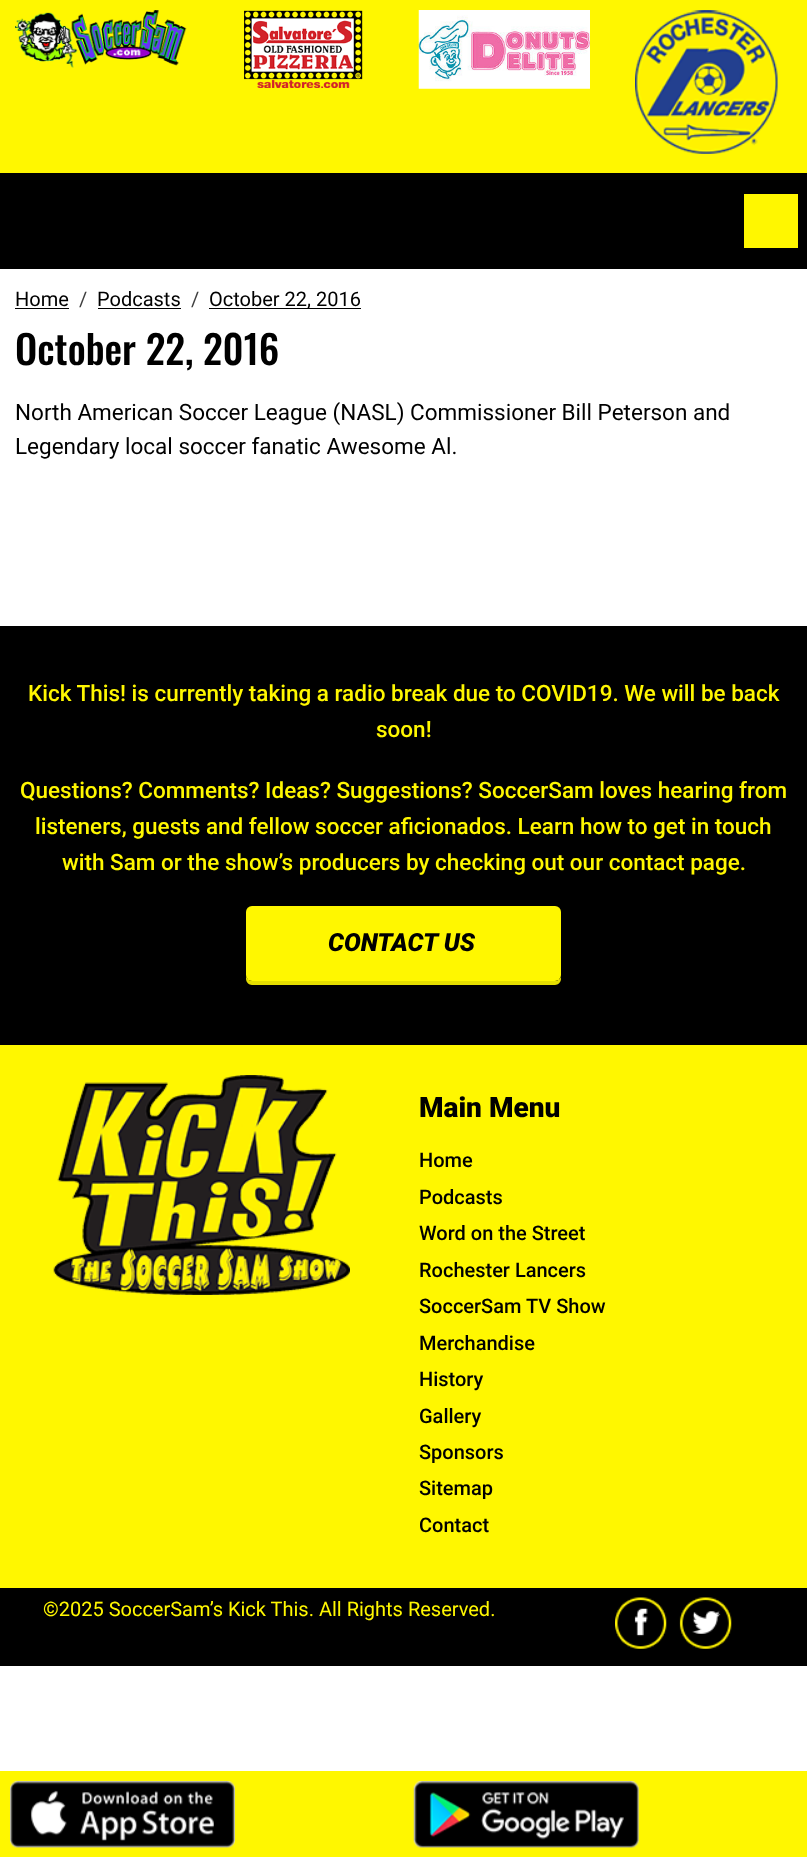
<svg xmlns="http://www.w3.org/2000/svg" width="807" height="1857">
<rect width="100%" height="100%" fill="#fff"/>
<rect width="807" height="173" fill="#fff700"/>
<image x="15" y="10" width="172" height="58" href="media/1.png"/>
<image x="244" y="10" width="119" height="78" href="media/2.png"/>
<image x="418" y="10" width="172" height="79" href="media/3.png"/>
<image x="635" y="10" width="143" height="144" href="media/4.png"/>
<rect y="173" width="807" height="96" fill="#000"/>
<rect x="744" y="194" width="54" height="54" fill="#fff700"/>
<text x="15" y="306" style="font-family:Roboto;font-size:20px;fill:#000">Home</text>
<rect x="15" y="308" width="54" height="1" fill="#000"/>
<text x="79" y="306" style="font-family:Roboto;font-size:20px;fill:#404040">/</text>
<text x="97" y="306" style="font-family:Roboto;font-size:20px;fill:#000">Podcasts</text>
<rect x="98" y="308" width="83" height="1" fill="#000"/>
<text x="191" y="306" style="font-family:Roboto;font-size:20px;fill:#404040">/</text>
<rect x="209" y="308" width="152" height="1" fill="#000"/>
<text x="209" y="306" style="font-family:Roboto;font-size:20px;fill:#000">October 22, 2016</text>
<text x="15" y="365" style="font-family:Oswald;font-size:39.5px;font-weight:500;fill:#000">October 22, 2016</text>
<text x="15" y="420" style="font-family:Roboto;font-size:22.5px;fill:#000">North American Soccer League (NASL) Commissioner Bill Peterson and</text>
<text x="15" y="454" style="font-family:Roboto;font-size:22.5px;fill:#000">Legendary local soccer fanatic Awesome Al.</text>
<rect y="626" width="807" height="419" fill="#000"/>
<text x="28" y="701" style="font-family:Roboto;font-size:22.5px;font-weight:500;fill:#fff700">Kick This! is currently taking a radio break due to COVID19. We will be back</text>
<text x="376" y="737" style="font-family:Roboto;font-size:22.5px;font-weight:500;fill:#fff700">soon!</text>
<text x="20" y="798" style="font-family:Roboto;font-size:22.5px;font-weight:500;fill:#fff700">Questions? Comments? Ideas? Suggestions? SoccerSam loves hearing from</text>
<text x="35" y="834" style="font-family:Roboto;font-size:22.5px;font-weight:500;fill:#fff700">listeners, guests and fellow soccer aficionados. Learn how to get in touch</text>
<text x="62" y="870" style="font-family:Roboto;font-size:22.5px;font-weight:500;fill:#fff700">with Sam or the show’s producers by checking out our contact page.</text>
<path d="M246 914v65c0 3 3 6 6 6h303c3 0 6-3 6-6v-2c-1 2-3 4-6 4h-303c-3 0-6-3-6-6z" fill="#e5de00"/>
<rect x="246" y="906" width="315" height="75" rx="6" fill="#fff700"/>
<text x="328" y="951" style="font-family:Roboto;font-size:25px;font-weight:900;font-style:italic;fill:#000">CONTACT US</text>
<rect y="1045" width="807" height="543" fill="#fff700"/>
<image x="53" y="1075" width="297" height="220" href="media/5.png"/>
<text x="419" y="1117" style="font-family:Roboto;font-size:28px;font-weight:900;fill:#000">Main Menu</text>
<text x="419" y="1167" style="font-family:Roboto;font-size:20px;font-weight:500;fill:#000">Home</text>
<text x="419" y="1204" style="font-family:Roboto;font-size:20px;font-weight:500;fill:#000">Podcasts</text>
<text x="419" y="1240" style="font-family:Roboto;font-size:20px;font-weight:500;fill:#000">Word on the Street</text>
<text x="419" y="1277" style="font-family:Roboto;font-size:20px;font-weight:500;fill:#000">Rochester Lancers</text>
<text x="419" y="1313" style="font-family:Roboto;font-size:20px;font-weight:500;fill:#000">SoccerSam TV Show</text>
<text x="419" y="1350" style="font-family:Roboto;font-size:20px;font-weight:500;fill:#000">Merchandise</text>
<text x="419" y="1386" style="font-family:Roboto;font-size:20px;font-weight:500;fill:#000">History</text>
<text x="419" y="1423" style="font-family:Roboto;font-size:20px;font-weight:500;fill:#000">Gallery</text>
<text x="419" y="1459" style="font-family:Roboto;font-size:20px;font-weight:500;fill:#000">Sponsors</text>
<text x="419" y="1495" style="font-family:Roboto;font-size:20px;font-weight:500;fill:#000">Sitemap</text>
<text x="419" y="1532" style="font-family:Roboto;font-size:20px;font-weight:500;fill:#000">Contact</text>
<rect y="1588" width="807" height="78" fill="#000"/>
<text x="43" y="1616" style="font-family:Roboto;font-size:20px;fill:#fff700">©2025 SoccerSam’s Kick This. All Rights Reserved.</text>
<image x="615" y="1597" width="52" height="52" href="media/6.png"/>
<image x="679" y="1597" width="53" height="52" href="media/7.png"/>
<rect y="1771" width="807" height="86" fill="#fff700"/>
<image x="10" y="1781" width="225" height="67" href="media/8.png"/>
<image x="413" y="1781" width="226" height="67" href="media/9.png"/>
</svg>
